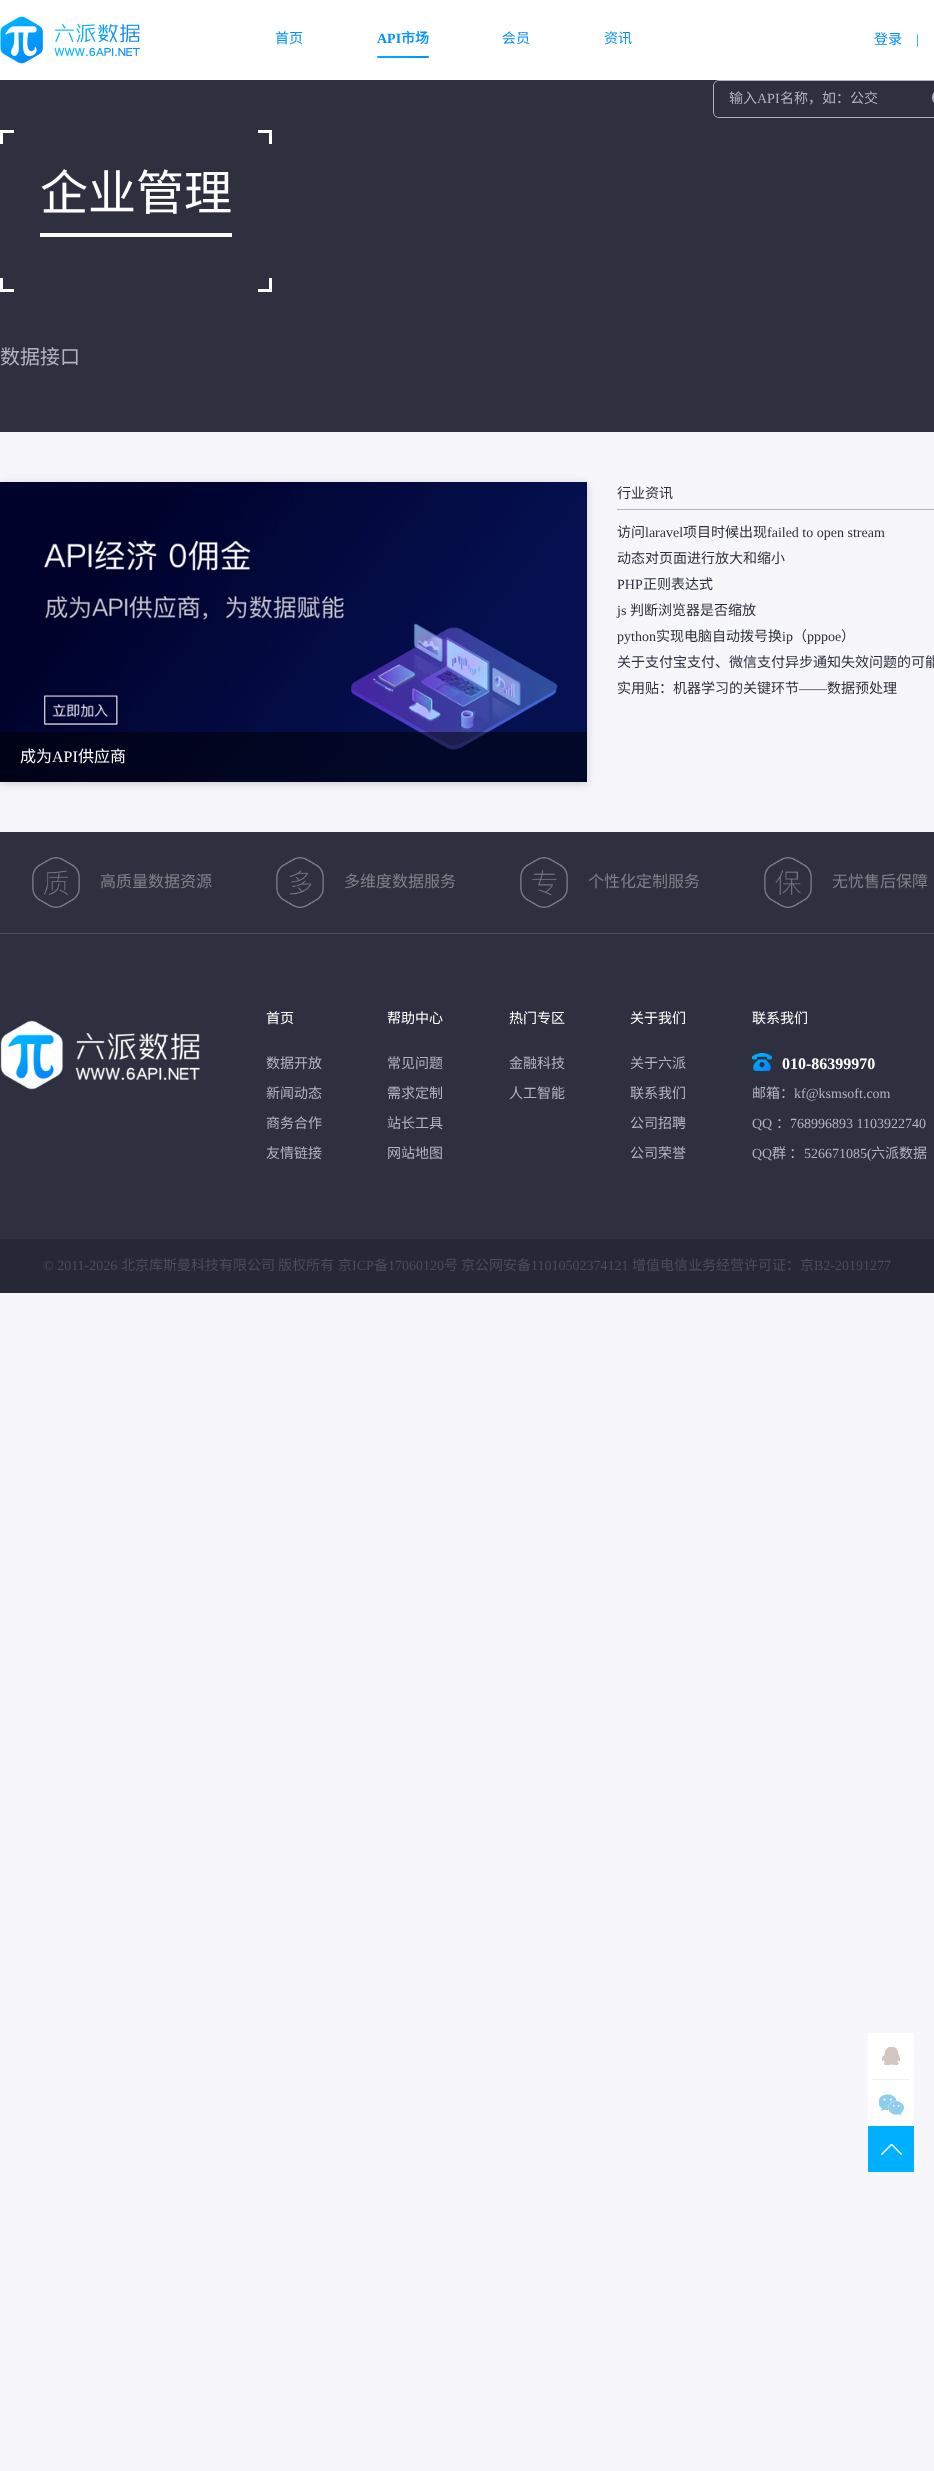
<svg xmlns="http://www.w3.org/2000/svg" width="934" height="2471">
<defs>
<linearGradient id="g1" gradientUnits="userSpaceOnUse" x1="390" y1="44" x2="417" y2="71"><stop offset="0" stop-color="#00b1fd"/><stop offset="1" stop-color="#0491f9"/></linearGradient>
</defs>
<rect width="100%" height="100%" fill="#f7f7fb"/>
<rect width="934" height="80" fill="#fff"/>
<image x="0" y="16" width="140" height="48" href="media/1.png"/>
<text x="275" y="43" style="font-family:Noto Sans CJK SC;font-size:14px;fill:#0491f9">首页</text>
<text x="377" y="43" style="font-family:Liberation Serif;font-size:14px;font-weight:bold;fill:#0491f9">API</text>
<text x="401" y="43" style="font-family:Noto Sans CJK SC;font-size:14px;font-weight:bold;fill:#0491f9">市场</text>
<text x="502" y="43" style="font-family:Noto Sans CJK SC;font-size:14px;fill:#0491f9">会员</text>
<text x="604" y="43" style="font-family:Noto Sans CJK SC;font-size:14px;fill:#0491f9">资讯</text>
<rect x="377" y="56" width="52" height="2" rx="1" fill="url(#g1)"/>
<text x="874" y="44" style="font-family:Noto Sans CJK SC;font-size:14px;fill:#0491f9">登录</text>
<text x="916" y="44" style="font-family:Liberation Serif;font-size:14px;fill:#0491f9">|</text>
<rect y="80" width="934" height="352" fill="#2e303f"/>
<path d="M719 80h207v38h-207c-3 0-6-3-6-6v-26c0-3 3-6 6-6zm0 1h207v36h-207c-3 0-5-2-5-5v-26c0-3 2-5 5-5z" fill="#b1b3c0" fill-rule="evenodd"/>
<text x="729" y="103" style="font-family:Noto Sans CJK SC;font-size:14px;fill:#b1b3c0">输入</text>
<text x="757" y="103" style="font-family:Liberation Serif;font-size:14px;fill:#b1b3c0">API</text>
<text x="780" y="103" style="font-family:Noto Sans CJK SC;font-size:14px;fill:#b1b3c0">名称，如：公交</text>
<image x="932" y="92" width="2" height="11" href="media/2.png"/>
<path d="M926 80h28c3.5 0 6 2.5 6 6v26c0 3.5-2.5 6-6 6h-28zm0 1h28c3 0 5 2 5 5v26c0 3-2 5-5 5h-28z" fill="#b1b3c0" fill-rule="evenodd"/>
<rect y="130" width="14" height="3" fill="#fff"/>
<rect y="130" width="3" height="14" fill="#fff"/>
<rect x="258" y="130" width="14" height="3" fill="#fff"/>
<rect x="269" y="130" width="3" height="14" fill="#fff"/>
<rect x="40" y="233" width="192" height="4" fill="#fff"/>
<text x="40" y="210" style="font-family:Noto Sans CJK SC;font-size:48px;fill:#fff">企业管理</text>
<rect y="289" width="14" height="3" fill="#fff"/>
<rect y="278" width="3" height="14" fill="#fff"/>
<rect x="269" y="278" width="3" height="14" fill="#fff"/>
<rect x="258" y="289" width="14" height="3" fill="#fff"/>
<text x="0" y="364" style="font-family:Noto Sans CJK SC;font-size:20px;fill:#b1b3c0">数据接口</text>
<rect x="617" y="509" width="317" height="1" fill="#b1b3c0"/>
<text x="617" y="498" style="font-family:Noto Sans CJK SC;font-size:14px;fill:#2e303f">行业资讯</text>
<text x="617" y="537" style="font-family:Noto Sans CJK SC;font-size:14px;fill:#2e303f">访问</text>
<text x="645" y="537" style="font-family:Liberation Serif;font-size:14px;fill:#2e303f">laravel</text>
<text x="683" y="537" style="font-family:Noto Sans CJK SC;font-size:14px;fill:#2e303f">项目时候出现</text>
<text x="767" y="537" style="font-family:Liberation Serif;font-size:14px;fill:#2e303f">failed to open stream</text>
<text x="617" y="563" style="font-family:Noto Sans CJK SC;font-size:14px;fill:#2e303f">动态对页面进行放大和缩小</text>
<text x="617" y="589" style="font-family:Liberation Serif;font-size:14px;fill:#2e303f">PHP</text>
<text x="643" y="589" style="font-family:Noto Sans CJK SC;font-size:14px;fill:#2e303f">正则表达式</text>
<text x="617" y="615" style="font-family:Liberation Serif;font-size:14px;fill:#2e303f">js</text>
<text x="630" y="615" style="font-family:Noto Sans CJK SC;font-size:14px;fill:#2e303f">判断浏览器是否缩放</text>
<text x="617" y="641" style="font-family:Liberation Serif;font-size:14px;fill:#2e303f">python</text>
<text x="656" y="641" style="font-family:Noto Sans CJK SC;font-size:14px;fill:#2e303f">实现电脑自动拨号换</text>
<text x="782" y="641" style="font-family:Liberation Serif;font-size:14px;fill:#2e303f">ip</text>
<text x="793" y="641" style="font-family:Noto Sans CJK SC;font-size:14px;fill:#2e303f">（</text>
<text x="807" y="641" style="font-family:Liberation Serif;font-size:14px;fill:#2e303f">pppoe</text>
<text x="841" y="641" style="font-family:Noto Sans CJK SC;font-size:14px;fill:#2e303f">）</text>
<text x="617" y="667" style="font-family:Noto Sans CJK SC;font-size:14px;fill:#2e303f">关于支付宝支付、微信支付异步通知失效问题的可能</text>
<text x="617" y="693" style="font-family:Noto Sans CJK SC;font-size:14px;fill:#2e303f">实用贴：机器学习的关键环节</text>
<text x="799" y="693" style="font-family:Liberation Serif;font-size:14px;fill:#2e303f">——</text>
<text x="827" y="693" style="font-family:Noto Sans CJK SC;font-size:14px;fill:#2e303f">数据预处理</text>
<rect y="484" width="587" height="300" fill="#0000002b" filter="blur(5px)"/>
<image x="0" y="482" width="587" height="300" href="media/3.png"/>
<rect y="732" width="587" height="50" fill="#00000080"/>
<text x="20" y="762" style="font-family:Noto Sans CJK SC;font-size:16px;fill:#fff">成为</text>
<text x="52" y="762" style="font-family:Liberation Serif;font-size:16px;fill:#fff">API</text>
<text x="78" y="762" style="font-family:Noto Sans CJK SC;font-size:16px;fill:#fff">供应商</text>
<rect y="832" width="934" height="407" fill="#2e303f"/>
<rect y="933" width="934" height="1" fill="#4e4e54"/>
<image x="32" y="857" width="48" height="51" href="media/4.png"/>
<text x="100" y="887" style="font-family:Noto Sans CJK SC;font-size:16px;fill:#7f8089">高质量数据资源</text>
<image x="276" y="857" width="48" height="51" href="media/5.png"/>
<text x="344" y="887" style="font-family:Noto Sans CJK SC;font-size:16px;fill:#7f8089">多维度数据服务</text>
<image x="520" y="857" width="48" height="51" href="media/6.png"/>
<text x="588" y="887" style="font-family:Noto Sans CJK SC;font-size:16px;fill:#7f8089">个性化定制服务</text>
<image x="764" y="857" width="48" height="51" href="media/7.png"/>
<text x="832" y="887" style="font-family:Noto Sans CJK SC;font-size:16px;fill:#7f8089">无忧售后保障</text>
<image x="0" y="1020" width="200" height="70" href="media/8.png"/>
<text x="266" y="1023" style="font-family:Noto Sans CJK SC;font-size:14px;fill:#fff">首页</text>
<text x="266" y="1068" style="font-family:Noto Sans CJK SC;font-size:14px;fill:#b1b3c0">数据开放</text>
<text x="266" y="1098" style="font-family:Noto Sans CJK SC;font-size:14px;fill:#b1b3c0">新闻动态</text>
<text x="266" y="1128" style="font-family:Noto Sans CJK SC;font-size:14px;fill:#b1b3c0">商务合作</text>
<text x="266" y="1158" style="font-family:Noto Sans CJK SC;font-size:14px;fill:#b1b3c0">友情链接</text>
<text x="387" y="1023" style="font-family:Noto Sans CJK SC;font-size:14px;fill:#fff">帮助中心</text>
<text x="387" y="1068" style="font-family:Noto Sans CJK SC;font-size:14px;fill:#b1b3c0">常见问题</text>
<text x="387" y="1098" style="font-family:Noto Sans CJK SC;font-size:14px;fill:#b1b3c0">需求定制</text>
<text x="387" y="1128" style="font-family:Noto Sans CJK SC;font-size:14px;fill:#b1b3c0">站长工具</text>
<text x="387" y="1158" style="font-family:Noto Sans CJK SC;font-size:14px;fill:#b1b3c0">网站地图</text>
<text x="509" y="1023" style="font-family:Noto Sans CJK SC;font-size:14px;fill:#fff">热门专区</text>
<text x="509" y="1068" style="font-family:Noto Sans CJK SC;font-size:14px;fill:#b1b3c0">金融科技</text>
<text x="509" y="1098" style="font-family:Noto Sans CJK SC;font-size:14px;fill:#b1b3c0">人工智能</text>
<text x="630" y="1023" style="font-family:Noto Sans CJK SC;font-size:14px;fill:#fff">关于我们</text>
<text x="630" y="1068" style="font-family:Noto Sans CJK SC;font-size:14px;fill:#b1b3c0">关于六派</text>
<text x="630" y="1098" style="font-family:Noto Sans CJK SC;font-size:14px;fill:#b1b3c0">联系我们</text>
<text x="630" y="1128" style="font-family:Noto Sans CJK SC;font-size:14px;fill:#b1b3c0">公司招聘</text>
<text x="630" y="1158" style="font-family:Noto Sans CJK SC;font-size:14px;fill:#b1b3c0">公司荣誉</text>
<text x="752" y="1023" style="font-family:Noto Sans CJK SC;font-size:14px;fill:#fff">联系我们</text>
<image x="752" y="1053" width="20" height="18" href="media/9.png"/>
<text x="782" y="1069" style="font-family:Liberation Serif;font-size:16px;font-weight:bold;fill:#fff">010-86399970</text>
<text x="752" y="1098" style="font-family:Noto Sans CJK SC;font-size:14px;fill:#b1b3c0">邮箱：</text>
<text x="794" y="1098" style="font-family:Liberation Serif;font-size:14px;fill:#b1b3c0">kf@ksmsoft.com</text>
<text x="752" y="1128" style="font-family:Liberation Serif;font-size:14px;fill:#b1b3c0">QQ</text>
<text x="776" y="1128" style="font-family:Noto Sans CJK SC;font-size:14px;fill:#b1b3c0">：</text>
<text x="790" y="1128" style="font-family:Liberation Serif;font-size:14px;fill:#b1b3c0">768996893 1103922740</text>
<text x="752" y="1158" style="font-family:Liberation Serif;font-size:14px;fill:#b1b3c0">QQ</text>
<text x="772" y="1158" style="font-family:Noto Sans CJK SC;font-size:14px;fill:#b1b3c0">群 ：</text>
<text x="804" y="1158" style="font-family:Liberation Serif;font-size:14px;fill:#b1b3c0">526671085(</text>
<text x="871" y="1158" style="font-family:Noto Sans CJK SC;font-size:14px;fill:#b1b3c0">六派数据</text>
<rect y="1239" width="934" height="54" fill="#262835"/>
<text x="43" y="1270" style="font-family:Liberation Serif;font-size:14px;fill:#4b4d57">© 2011-2026</text>
<text x="121" y="1270" style="font-family:Noto Sans CJK SC;font-size:14px;fill:#4b4d57">北京库斯曼科技有限公司</text>
<text x="278" y="1270" style="font-family:Noto Sans CJK SC;font-size:14px;fill:#4b4d57">版权所有</text>
<text x="338" y="1270" style="font-family:Noto Sans CJK SC;font-size:14px;fill:#4b4d57">京</text>
<text x="352" y="1270" style="font-family:Liberation Serif;font-size:14px;fill:#4b4d57">ICP</text>
<text x="374" y="1270" style="font-family:Noto Sans CJK SC;font-size:14px;fill:#4b4d57">备</text>
<text x="388" y="1270" style="font-family:Liberation Serif;font-size:14px;fill:#4b4d57">17060120</text>
<text x="444" y="1270" style="font-family:Noto Sans CJK SC;font-size:14px;fill:#4b4d57">号</text>
<text x="461" y="1270" style="font-family:Noto Sans CJK SC;font-size:14px;fill:#4b4d57">京公网安备</text>
<text x="531" y="1270" style="font-family:Liberation Serif;font-size:14px;fill:#4b4d57">11010502374121</text>
<text x="632" y="1270" style="font-family:Noto Sans CJK SC;font-size:14px;fill:#4b4d57">增值电信业务经营许可证：京</text>
<text x="814" y="1270" style="font-family:Liberation Serif;font-size:14px;fill:#4b4d57">B2-20191277</text>
<rect x="868" y="2033" width="46" height="93" fill="#fff"/>
<image x="882" y="2047" width="18" height="18" href="media/10.png"/>
<rect x="872" y="2079" width="38" height="1" fill="#f0f3f5"/>
<image x="879" y="2094" width="25" height="21" href="media/11.png"/>
<rect x="868" y="2126" width="46" height="46" fill="#00b0fe"/>
<image x="881" y="2144" width="21" height="11" href="media/12.png"/>
</svg>
